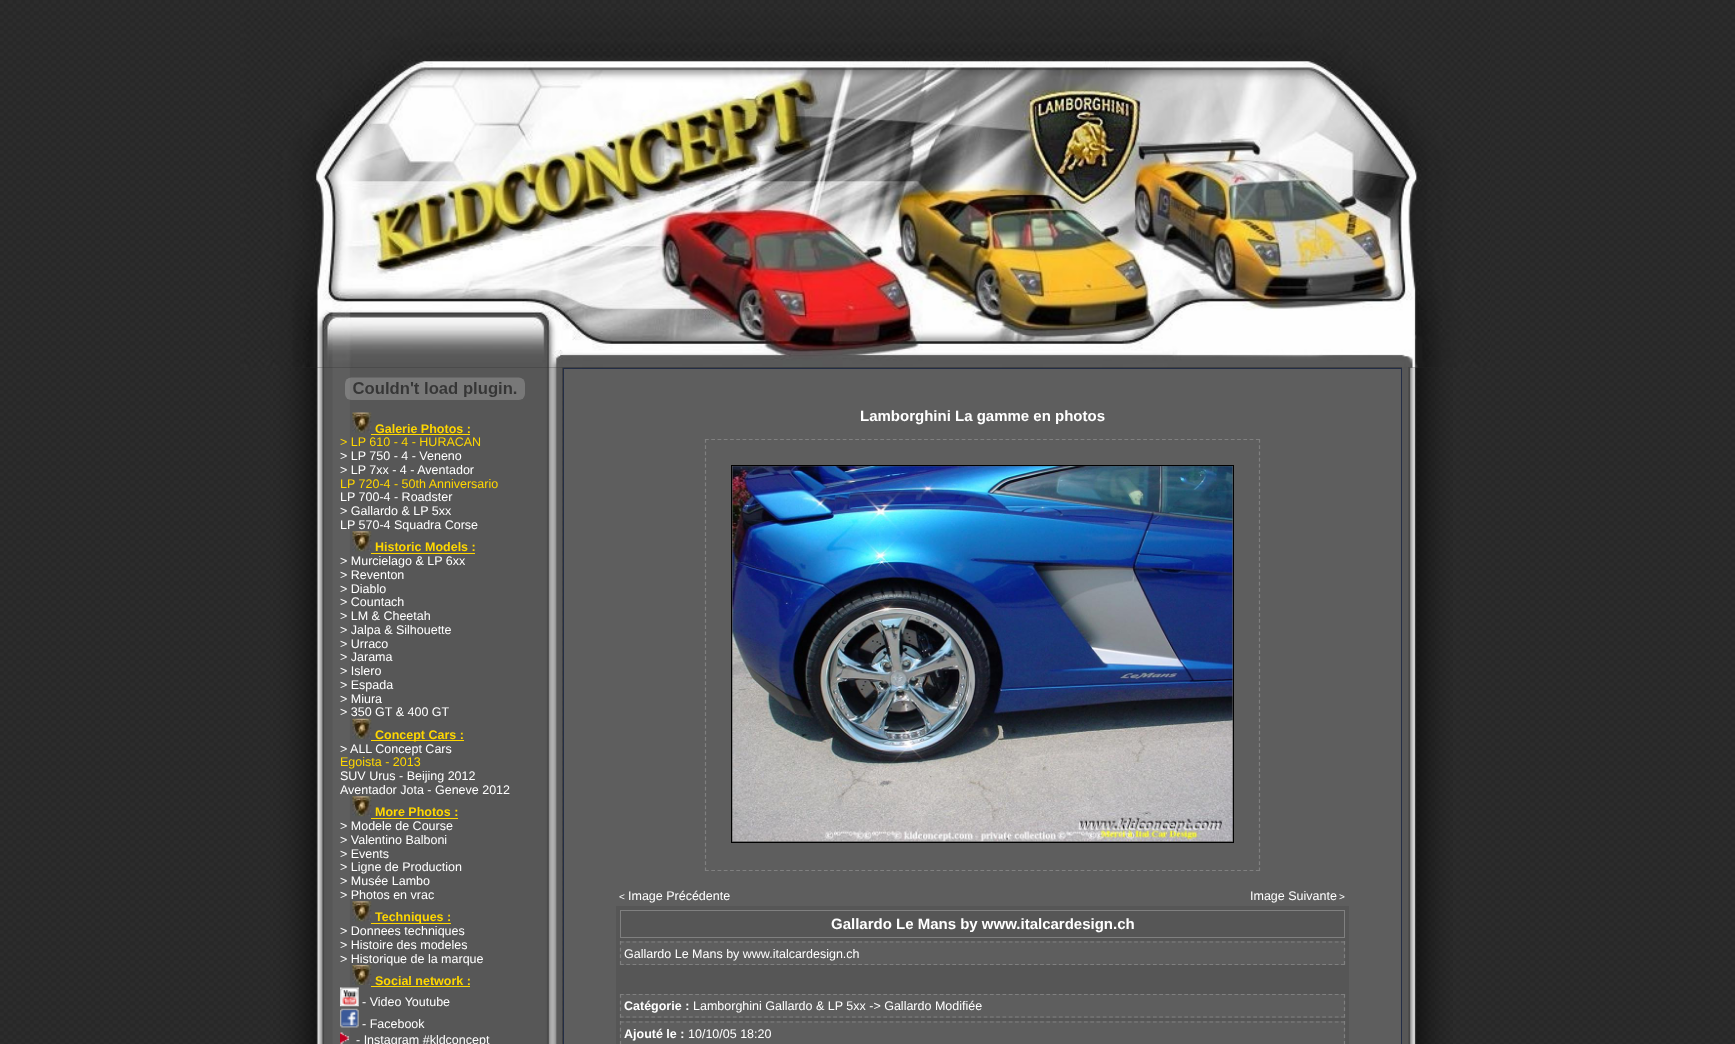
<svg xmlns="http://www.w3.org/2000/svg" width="1735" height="1044">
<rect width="100%" height="100%" fill="#fff"/>
<image x="0" y="0" width="1735" height="1044" href="media/1.png"/>
<image x="273" y="367" width="52" height="677" href="media/3.png"/>
<image x="325" y="367" width="220" height="677" href="media/4.png"/>
<image x="545" y="367" width="18" height="677" href="media/13.png"/>
<rect x="1402" y="367" width="6" height="677" fill="#575757"/>
<image x="1408" y="367" width="45" height="677" href="media/15.png"/>
<image x="244" y="10" width="1246" height="358" href="media/2.png"/>
<image x="345" y="377" width="180" height="23" href="media/5.png"/>
<image x="352" y="412" width="20" height="21" href="media/6.png"/>
<text x="375" y="433" style="font-family:Liberation Sans;font-size:12.5px;font-weight:bold;fill:#ffd700">Galerie Photos :</text>
<rect x="371" y="434" width="99" height="1" fill="#ffd700"/>
<text x="340" y="446" style="font-family:Liberation Sans;font-size:12.5px;fill:#ffd700">&gt; LP 610 - 4 - HURACAN</text>
<text x="340" y="460" style="font-family:Liberation Sans;font-size:12.5px;fill:#fff">&gt; LP 750 - 4 - Veneno</text>
<text x="340" y="474" style="font-family:Liberation Sans;font-size:12.5px;fill:#fff">&gt; LP 7xx - 4 - Aventador</text>
<text x="340" y="488" style="font-family:Liberation Sans;font-size:12.5px;fill:#ffd700">LP 720-4 - 50th Anniversario</text>
<text x="340" y="501" style="font-family:Liberation Sans;font-size:12.5px;fill:#fff">LP 700-4 - Roadster</text>
<text x="340" y="515" style="font-family:Liberation Sans;font-size:12.5px;fill:#fff">&gt; Gallardo &amp; LP 5xx</text>
<text x="340" y="529" style="font-family:Liberation Sans;font-size:12.5px;fill:#fff">LP 570-4 Squadra Corse</text>
<image x="352" y="531" width="20" height="21" href="media/7.png"/>
<text x="375" y="551" style="font-family:Liberation Sans;font-size:12.5px;font-weight:bold;fill:#ffd700">Historic Models :</text>
<rect x="371" y="553" width="104" height="1" fill="#ffd700"/>
<text x="340" y="565" style="font-family:Liberation Sans;font-size:12.5px;fill:#fff">&gt; Murcielago &amp; LP 6xx</text>
<text x="340" y="579" style="font-family:Liberation Sans;font-size:12.5px;fill:#fff">&gt; Reventon</text>
<text x="340" y="593" style="font-family:Liberation Sans;font-size:12.5px;fill:#fff">&gt; Diablo</text>
<text x="340" y="606" style="font-family:Liberation Sans;font-size:12.5px;fill:#fff">&gt; Countach</text>
<text x="340" y="620" style="font-family:Liberation Sans;font-size:12.5px;fill:#fff">&gt; LM &amp; Cheetah</text>
<text x="340" y="634" style="font-family:Liberation Sans;font-size:12.5px;fill:#fff">&gt; Jalpa &amp; Silhouette</text>
<text x="340" y="648" style="font-family:Liberation Sans;font-size:12.5px;fill:#fff">&gt; Urraco</text>
<text x="340" y="661" style="font-family:Liberation Sans;font-size:12.5px;fill:#fff">&gt; Jarama</text>
<text x="340" y="675" style="font-family:Liberation Sans;font-size:12.5px;fill:#fff">&gt; Islero</text>
<text x="340" y="689" style="font-family:Liberation Sans;font-size:12.5px;fill:#fff">&gt; Espada</text>
<text x="340" y="703" style="font-family:Liberation Sans;font-size:12.5px;fill:#fff">&gt; Miura</text>
<text x="340" y="716" style="font-family:Liberation Sans;font-size:12.5px;fill:#fff">&gt; 350 GT &amp; 400 GT</text>
<image x="352" y="718" width="20" height="21" href="media/8.png"/>
<rect x="371" y="740" width="93" height="1" fill="#ffd700"/>
<text x="375" y="739" style="font-family:Liberation Sans;font-size:12.5px;font-weight:bold;fill:#ffd700">Concept Cars :</text>
<text x="340" y="753" style="font-family:Liberation Sans;font-size:12.5px;fill:#fff">&gt; ALL Concept Cars</text>
<text x="340" y="766" style="font-family:Liberation Sans;font-size:12.5px;fill:#ffd700">Egoista - 2013</text>
<text x="340" y="780" style="font-family:Liberation Sans;font-size:12.5px;fill:#fff">SUV Urus - Beijing 2012</text>
<text x="340" y="794" style="font-family:Liberation Sans;font-size:12.5px;fill:#fff">Aventador Jota - Geneve 2012</text>
<image x="352" y="796" width="20" height="21" href="media/7.png"/>
<text x="375" y="816" style="font-family:Liberation Sans;font-size:12.5px;font-weight:bold;fill:#ffd700">More Photos :</text>
<rect x="371" y="818" width="87" height="1" fill="#ffd700"/>
<text x="340" y="830" style="font-family:Liberation Sans;font-size:12.5px;fill:#fff">&gt; Modele de Course</text>
<text x="340" y="844" style="font-family:Liberation Sans;font-size:12.5px;fill:#fff">&gt; Valentino Balboni</text>
<text x="340" y="858" style="font-family:Liberation Sans;font-size:12.5px;fill:#fff">&gt; Events</text>
<text x="340" y="871" style="font-family:Liberation Sans;font-size:12.5px;fill:#fff">&gt; Ligne de Production</text>
<text x="340" y="885" style="font-family:Liberation Sans;font-size:12.5px;fill:#fff">&gt; Musée Lambo</text>
<text x="340" y="899" style="font-family:Liberation Sans;font-size:12.5px;fill:#fff">&gt; Photos en vrac</text>
<image x="352" y="901" width="20" height="21" href="media/7.png"/>
<rect x="371" y="923" width="80" height="1" fill="#ffd700"/>
<text x="375" y="921" style="font-family:Liberation Sans;font-size:12.5px;font-weight:bold;fill:#ffd700">Techniques :</text>
<text x="340" y="935" style="font-family:Liberation Sans;font-size:12.5px;fill:#fff">&gt; Donnees techniques</text>
<text x="340" y="949" style="font-family:Liberation Sans;font-size:12.5px;fill:#fff">&gt; Histoire des modeles</text>
<text x="340" y="963" style="font-family:Liberation Sans;font-size:12.5px;fill:#fff">&gt; Historique de la marque</text>
<image x="352" y="965" width="20" height="20" href="media/9.png"/>
<text x="375" y="985" style="font-family:Liberation Sans;font-size:12.5px;font-weight:bold;fill:#ffd700">Social network :</text>
<rect x="371" y="986" width="99" height="1" fill="#ffd700"/>
<image x="340" y="987" width="19" height="20" href="media/10.png"/>
<text x="362" y="1006" style="font-family:Liberation Sans;font-size:12.5px;fill:#fff">- Video Youtube</text>
<image x="340" y="1008" width="19" height="20" href="media/11.png"/>
<text x="362" y="1028" style="font-family:Liberation Sans;font-size:12.5px;fill:#fff">- Facebook</text>
<image x="340" y="1032" width="9" height="12" href="media/12.png"/>
<text x="356" y="1044" style="font-family:Liberation Sans;font-size:12.5px;fill:#fff">- Instagram #kldconcept</text>
<rect x="563" y="368" width="839" height="676" fill="#232d46"/>
<rect x="564" y="369" width="837" height="675" fill="#5e5e5e"/>
<text x="860" y="421" style="font-family:Liberation Sans;font-size:15px;font-weight:bold;fill:#fff">Lamborghini La gamme en photos</text>
<path d="M705 439.5h555" fill="none" stroke="#808080" stroke-width="1.2" stroke-dasharray="3.75 2.51"/>
<path d="M1259.5 439v432" fill="none" stroke="#808080" stroke-width="1.2" stroke-dasharray="3.75 2.46"/>
<path d="M705 870.5h555" fill="none" stroke="#808080" stroke-width="1.2" stroke-dasharray="3.75 2.51"/>
<path d="M705.5 439v432" fill="none" stroke="#808080" stroke-width="1.2" stroke-dasharray="3.75 2.46"/>
<rect x="731.5" y="465.5" width="502" height="377" fill="none" stroke="#000"/>
<image x="732" y="466" width="501" height="376" href="media/14.png"/>
<text x="619" y="900" style="font-family:Liberation Sans;font-size:10px;fill:#fff">&lt;</text>
<text x="628" y="900" style="font-family:Liberation Sans;font-size:12.5px;fill:#fff">Image Précédente</text>
<text x="1250" y="900" style="font-family:Liberation Sans;font-size:12.5px;fill:#fff">Image Suivante</text>
<text x="1339" y="900" style="font-family:Liberation Sans;font-size:10px;fill:#fff">&gt;</text>
<rect x="616" y="906" width="733" height="138" fill="#565656"/>
<rect x="620.5" y="910.5" width="724" height="27" fill="none" stroke="#808080"/>
<text x="831" y="929" style="font-family:Liberation Sans;font-size:15px;font-weight:bold;fill:#fff">Gallardo Le Mans by www.italcardesign.ch</text>
<rect x="620" y="941" width="725" height="24" fill="#5e5e5e"/>
<path d="M620 942h725" fill="none" stroke="#808080" stroke-width="1.2" stroke-dasharray="3.75 2.52"/>
<path d="M1344.5 941v24" fill="none" stroke="#808080" stroke-width="1.2" stroke-dasharray="3.75 2.91"/>
<path d="M620 964.5h725" fill="none" stroke="#808080" stroke-width="1.2" stroke-dasharray="3.75 2.52"/>
<path d="M620.5 941v24" fill="none" stroke="#808080" stroke-width="1.2" stroke-dasharray="3.75 2.91"/>
<text x="624" y="958" style="font-family:Liberation Sans;font-size:12.5px;fill:#fff">Gallardo Le Mans by www.italcardesign.ch</text>
<rect x="620" y="994" width="725" height="24" fill="#5e5e5e"/>
<path d="M620 994.5h725" fill="none" stroke="#808080" stroke-width="1.2" stroke-dasharray="3.75 2.52"/>
<path d="M1344.5 994v23.5" fill="none" stroke="#808080" stroke-width="1.2" stroke-dasharray="3.75 2.91"/>
<path d="M620 1017h725" fill="none" stroke="#808080" stroke-width="1.2" stroke-dasharray="3.75 2.52"/>
<path d="M620.5 994v23.5" fill="none" stroke="#808080" stroke-width="1.2" stroke-dasharray="3.75 2.91"/>
<text x="624" y="1010" style="font-family:Liberation Sans;font-size:12.5px;font-weight:bold;fill:#fff">Catégorie :</text>
<text x="693" y="1010" style="font-family:Liberation Sans;font-size:12.5px;fill:#fff">Lamborghini Gallardo &amp; LP 5xx -&gt; Gallardo Modifiée</text>
<rect x="620" y="1021" width="725" height="23" fill="#5e5e5e"/>
<path d="M620 1022h725" fill="none" stroke="#808080" stroke-width="1.2" stroke-dasharray="3.75 2.52"/>
<path d="M1344.5 1021v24" fill="none" stroke="#808080" stroke-width="1.2" stroke-dasharray="3.75 2.91"/>
<path d="M620 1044.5h725" fill="none" stroke="#808080" stroke-width="1.2" stroke-dasharray="3.75 2.52"/>
<path d="M620.5 1021v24" fill="none" stroke="#808080" stroke-width="1.2" stroke-dasharray="3.75 2.91"/>
<text x="624" y="1038" style="font-family:Liberation Sans;font-size:12.5px;font-weight:bold;fill:#fff">Ajouté le :</text>
<text x="688" y="1038" style="font-family:Liberation Sans;font-size:12.5px;fill:#fff">10/10/05 18:20</text>
</svg>
